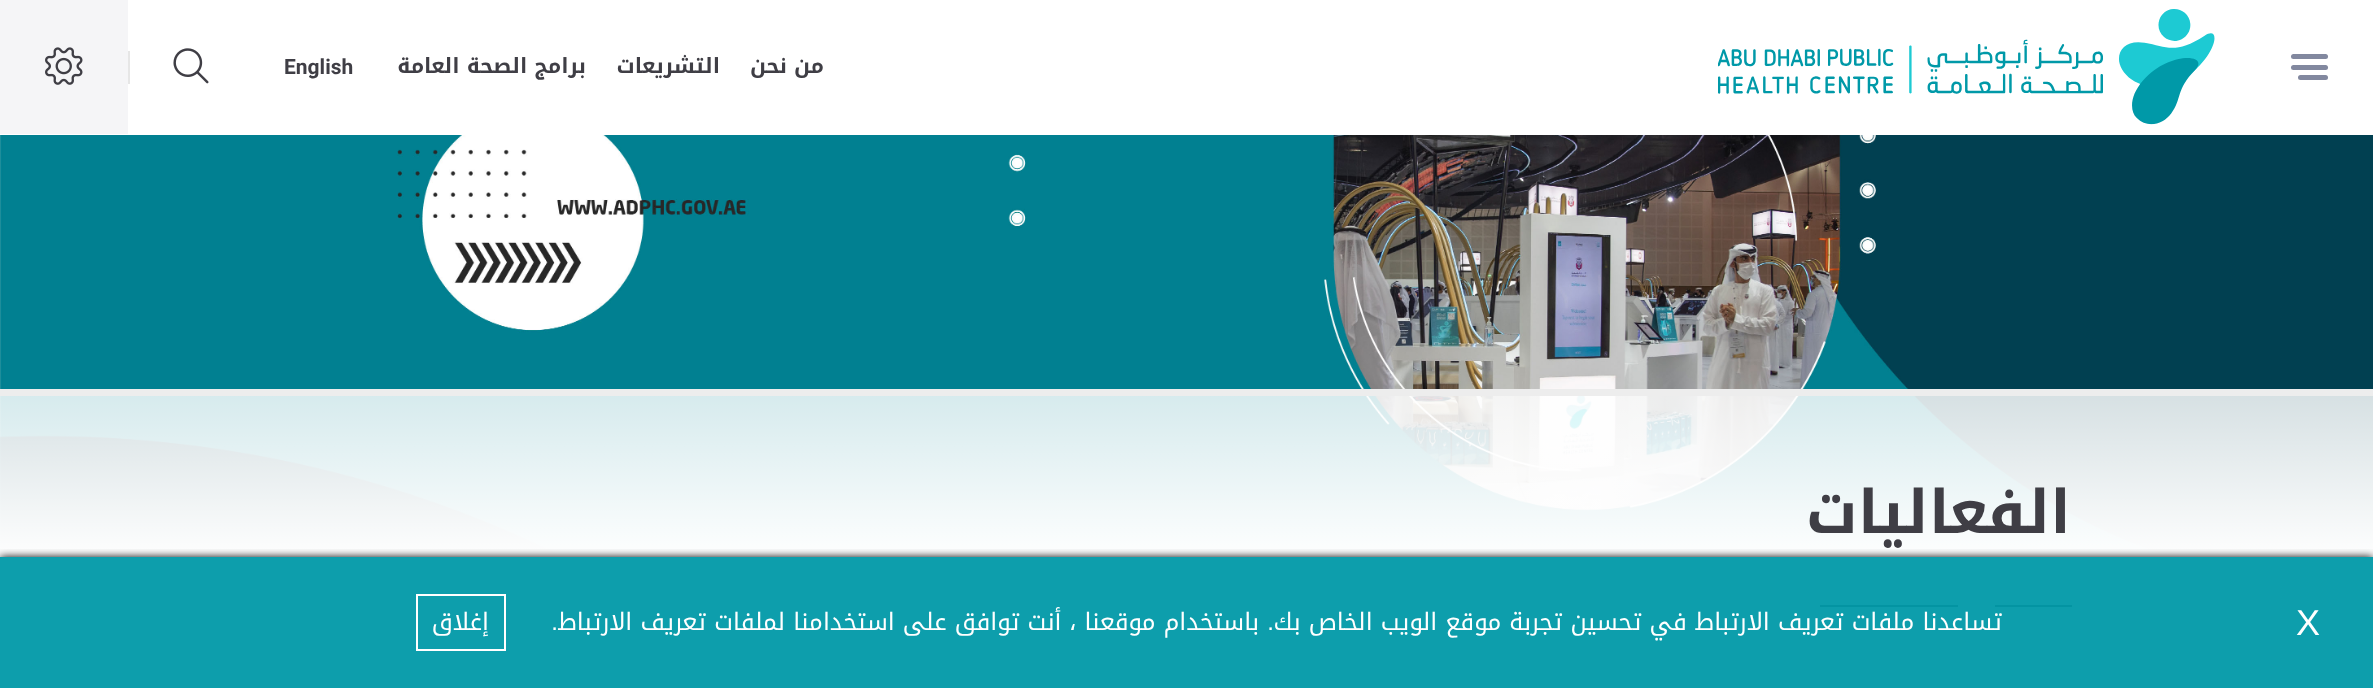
<svg xmlns="http://www.w3.org/2000/svg" width="2373" height="688">
<defs>
<linearGradient id="g1" gradientUnits="userSpaceOnUse" x1="1187" y1="353" x2="1187" y2="585"><stop offset="0" stop-color="#fff" stop-opacity="0.8"/><stop offset="0.9" stop-color="#fff"/></linearGradient>
<clipPath id="clip1"><rect x="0" y="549" width="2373" height="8"/></clipPath>
</defs>
<rect width="100%" height="100%" fill="#fff"/>
<rect x="2298" y="75" width="30" height="5" rx="2.5" fill="#82889f"/>
<rect x="2291" y="54" width="37" height="5" rx="2.5" fill="#82889f"/>
<rect x="2291" y="65" width="37" height="5" rx="2.5" fill="#82889f"/>
<image x="1718" y="9" width="497" height="116" href="media/1.png"/>
<text x="824" y="73" style="font-family:Noto Kufi Arabic;font-size:21px;font-weight:bold;direction:rtl;fill:#3f3e45">من نحن</text>
<text x="720" y="73" style="font-family:Noto Kufi Arabic;font-size:21px;font-weight:bold;direction:rtl;fill:#3f3e45">التشريعات</text>
<text x="586" y="73" style="font-family:Noto Kufi Arabic;font-size:21px;font-weight:bold;direction:rtl;fill:#3f3e45">برامج الصحة العامة</text>
<text x="284" y="74" style="font-family:Roboto;font-size:21px;font-weight:bold;fill:#3f3e45">English</text>
<image x="173" y="48" width="36" height="36" href="media/2.png"/>
<rect x="128" y="51" width="2" height="33" fill="#e6e6e6"/>
<rect width="128" height="134" fill="#f5f5f7"/>
<image x="45" y="47" width="38" height="38" href="media/3.png"/>
<image x="0" y="135" width="2373" height="421" href="media/4.png"/>
<rect y="396" width="2373" height="160" fill="url(#g1)"/>
<rect y="389" width="2373" height="7" fill="#ededed"/>
<text x="2071" y="533" style="font-family:Noto Kufi Arabic;font-size:60px;font-weight:bold;direction:rtl;fill:#3f3e45">الفعاليات</text>
<rect x="1995" y="605" width="77" height="2" fill="#3f3e45"/>
<rect x="1820" y="605" width="138" height="2" fill="#3f3e45"/>
<rect x="753" y="678" width="75" height="10" fill="#fafafb"/>
<g clip-path="url(#clip1)">
<rect y="557" width="2373" height="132" fill="#000" filter="blur(4px)"/>
</g>
<rect y="557" width="2373" height="131" fill="#0099a8f2"/>
<text x="2296" y="635" style="font-family:Liberation Sans;font-size:36px;fill:#fff">X</text>
<text x="2002" y="630" style="font-family:Noto Kufi Arabic;font-size:24px;direction:rtl;fill:#fff">تساعدنا ملفات تعريف الارتباط في تحسين تجربة موقع الويب الخاص بك</text>
<text x="1274" y="630" style="font-family:Liberation Sans;font-size:24px;direction:rtl;fill:#fff">.</text>
<text x="1259" y="630" style="font-family:Noto Kufi Arabic;font-size:24px;direction:rtl;fill:#fff">باستخدام موقعنا ، أنت توافق على استخدامنا لملفات تعريف الارتباط</text>
<text x="558" y="630" style="font-family:Liberation Sans;font-size:24px;direction:rtl;fill:#fff">.</text>
<rect x="417" y="595" width="88" height="55" fill="none" stroke="#fff" stroke-width="2"/>
<text x="489" y="630" style="font-family:Noto Kufi Arabic;font-size:24px;direction:rtl;fill:#fff">إغلاق</text>
</svg>
